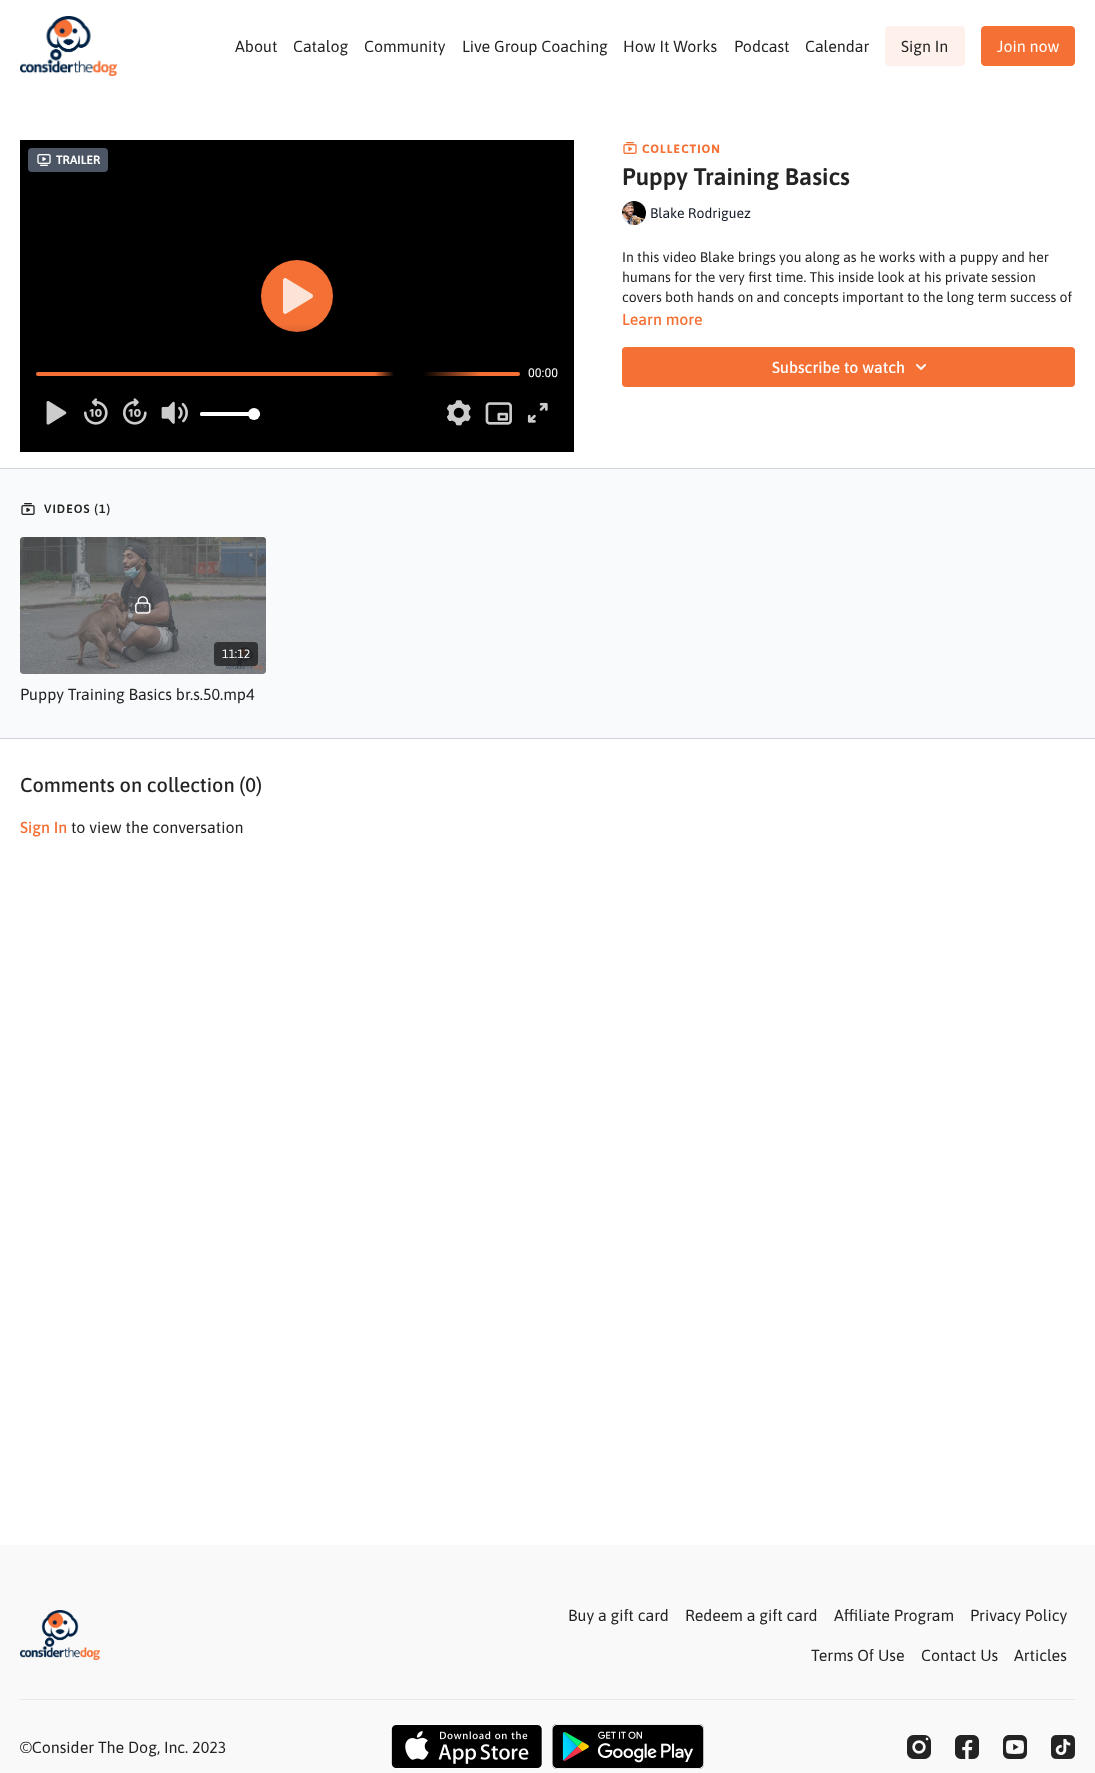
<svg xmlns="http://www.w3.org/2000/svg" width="1095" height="1773">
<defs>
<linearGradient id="g1" gradientUnits="userSpaceOnUse" x1="297" y1="452" x2="297" y2="318"><stop offset="0.54" stop-color="#000" stop-opacity="0.6"/><stop offset="0.96" stop-color="#000" stop-opacity="0"/></linearGradient>
<linearGradient id="g2" gradientUnits="userSpaceOnUse" x1="36" y1="376" x2="1004" y2="376"><stop offset="0.35" stop-color="#f57035"/><stop offset="0.37" stop-color="#000"/><stop offset="0.4" stop-color="#000"/><stop offset="0.46" stop-color="#f57035"/><stop offset="1" stop-color="#f57035"/></linearGradient>
</defs>
<rect width="100%" height="100%" fill="#fff"/>
<image x="20" y="16" width="97" height="60" href="media/1.png"/>
<text x="235" y="52" style="font-family:Asap;font-size:16px;fill:#232323">About</text>
<text x="293" y="52" style="font-family:Asap;font-size:16px;fill:#232323">Catalog</text>
<text x="364" y="52" style="font-family:Asap;font-size:16px;fill:#232323">Community</text>
<text x="462" y="52" style="font-family:Asap;font-size:16px;fill:#232323">Live Group Coaching</text>
<text x="623" y="52" style="font-family:Asap;font-size:16px;fill:#232323">How It Works</text>
<text x="734" y="52" style="font-family:Asap;font-size:16px;fill:#232323">Podcast</text>
<text x="805" y="52" style="font-family:Asap;font-size:16px;fill:#232323">Calendar</text>
<rect x="885.5" y="26.5" width="79" height="39" rx="3.5" fill="#fef1eb" stroke="#fef1eb"/>
<text x="901" y="52" style="font-family:Asap;font-size:16px;fill:#232323">Sign In</text>
<rect x="981.5" y="26.5" width="93" height="39" rx="3.5" fill="#f57035" stroke="#f57035"/>
<text x="997" y="52" style="font-family:Asap;font-size:16px;fill:#fff">Join now</text>
<rect x="20" y="140" width="554" height="312" fill="#000"/>
<rect x="28" y="148" width="80" height="24" rx="4" fill="#4b5563"/>
<image x="37" y="154" width="14" height="12" href="media/2.png"/>
<text x="56" y="164" style="font-family:Asap;font-size:12px;font-weight:600;fill:#fff">TRAILER</text>
<circle cx="297" cy="296" r="36" fill="#f57035"/>
<path d="M286.5 278.5c-1.5-1-3.5 0-3.5 1.5v32c0 1.5 2 2.5 3.5 1.5l25.5-15.5c1.5-1 1.5-3 0-4z" fill="#fde2d7"/>
<rect x="276" y="325" width="42" height="7" fill="url(#g1)"/>
<rect x="36" y="372" width="484" height="4" rx="2" fill="url(#g2)"/>
<text x="528" y="377" style="font-family:Roboto;font-size:12px;fill:#fff">00:00</text>
<image x="46" y="401" width="21" height="24" href="media/3.png"/>
<image x="84" y="398" width="24" height="27" href="media/4.png"/>
<image x="123" y="398" width="24" height="27" href="media/5.png"/>
<image x="161" y="401" width="27" height="23" href="media/6.png"/>
<rect x="200" y="412" width="60" height="4" rx="1.5" fill="#fff"/>
<circle cx="254" cy="414" r="6" fill="#fff"/>
<image x="447" y="400" width="24" height="26" href="media/7.png"/>
<image x="485" y="402" width="27" height="23" href="media/8.png"/>
<image x="527" y="402" width="21" height="21" href="media/9.png"/>
<image x="623" y="142" width="14" height="12" href="media/10.png"/>
<text x="642" y="153" style="font-family:Asap;font-size:12px;font-weight:bold;letter-spacing:1px;fill:#f57035">COLLECTION</text>
<text x="622" y="185" style="font-family:Asap;font-size:24px;font-weight:600;fill:#232323">Puppy Training Basics</text>
<image x="622" y="201" width="24" height="24" href="media/11.png"/>
<text x="650" y="218" style="font-family:Asap;font-size:14px;fill:#111827">Blake Rodriguez</text>
<text x="622" y="262" style="font-family:Asap;font-size:14px;fill:#232323">In this video Blake brings you along as he works with a puppy and her</text>
<text x="622" y="282" style="font-family:Asap;font-size:14px;fill:#232323">humans for the very first time. This inside look at his private session</text>
<text x="622" y="302" style="font-family:Asap;font-size:14px;fill:#232323">covers both hands on and concepts important to the long term success of</text>
<text x="622" y="325" style="font-family:Asap;font-size:16px;font-weight:500;fill:#f57035">Learn more</text>
<rect x="622" y="347" width="453" height="40" rx="4" fill="#f57035"/>
<text x="772" y="373" style="font-family:Asap;font-size:16px;font-weight:500;fill:#fff">Subscribe to watch</text>
<image x="916" y="364" width="10" height="6" href="media/12.png"/>
<rect y="469" width="1095" height="269" fill="#f9fafb"/>
<rect y="468" width="1095" height="1" fill="#d1d5db"/>
<rect y="738" width="1095" height="1" fill="#d1d5db"/>
<image x="21" y="503" width="14" height="12" href="media/13.png"/>
<text x="44" y="513" style="font-family:Asap;font-size:12px;font-weight:600;letter-spacing:1px;fill:#232323">VIDEOS (1)</text>
<image x="20" y="537" width="246" height="137" href="media/14.png"/>
<rect x="20" y="537" width="246" height="137" rx="4" fill="#62676d99"/>
<image x="135" y="596" width="16" height="18" href="media/15.png"/>
<rect x="214" y="642" width="44" height="24" rx="4" fill="#00000099"/>
<text x="222" y="658" style="font-family:Asap;font-size:12px;fill:#fff">11:12</text>
<text x="20" y="700" style="font-family:Asap;font-size:16px;fill:#232323">Puppy Training Basics br.s.50.mp4</text>
<text x="20" y="792" style="font-family:Asap;font-size:20px;font-weight:500;fill:#232323">Comments on collection (0)</text>
<text x="20" y="833" style="font-family:Asap;font-size:16px;font-weight:500;fill:#f57035">Sign In</text>
<text x="71" y="833" style="font-family:Asap;font-size:16px;fill:#232323">to view the conversation</text>
<rect y="1545" width="1095" height="228" fill="#f9f9f9"/>
<image x="20" y="1610" width="80" height="50" href="media/16.png"/>
<text x="568" y="1621" style="font-family:Asap;font-size:16px;fill:#232323">Buy a gift card</text>
<text x="685" y="1621" style="font-family:Asap;font-size:16px;fill:#232323">Redeem a gift card</text>
<text x="834" y="1621" style="font-family:Asap;font-size:16px;fill:#232323">Affiliate Program</text>
<text x="970" y="1621" style="font-family:Asap;font-size:16px;fill:#232323">Privacy Policy</text>
<text x="811" y="1661" style="font-family:Asap;font-size:16px;fill:#232323">Terms Of Use</text>
<text x="921" y="1661" style="font-family:Asap;font-size:16px;fill:#232323">Contact Us</text>
<text x="1014" y="1661" style="font-family:Asap;font-size:16px;fill:#232323">Articles</text>
<rect x="20" y="1699" width="1055" height="1" fill="#e9e9e9"/>
<text x="20" y="1753" style="font-family:Asap;font-size:16px;fill:#232323">©Consider The Dog, Inc. 2023</text>
<image x="391" y="1724" width="152" height="45" href="media/17.png"/>
<image x="552" y="1724" width="152" height="45" href="media/18.png"/>
<image x="907" y="1735" width="24" height="24" href="media/19.png"/>
<image x="955" y="1735" width="24" height="24" href="media/20.png"/>
<image x="1003" y="1735" width="24" height="24" href="media/21.png"/>
<image x="1051" y="1735" width="24" height="24" href="media/22.png"/>
</svg>
